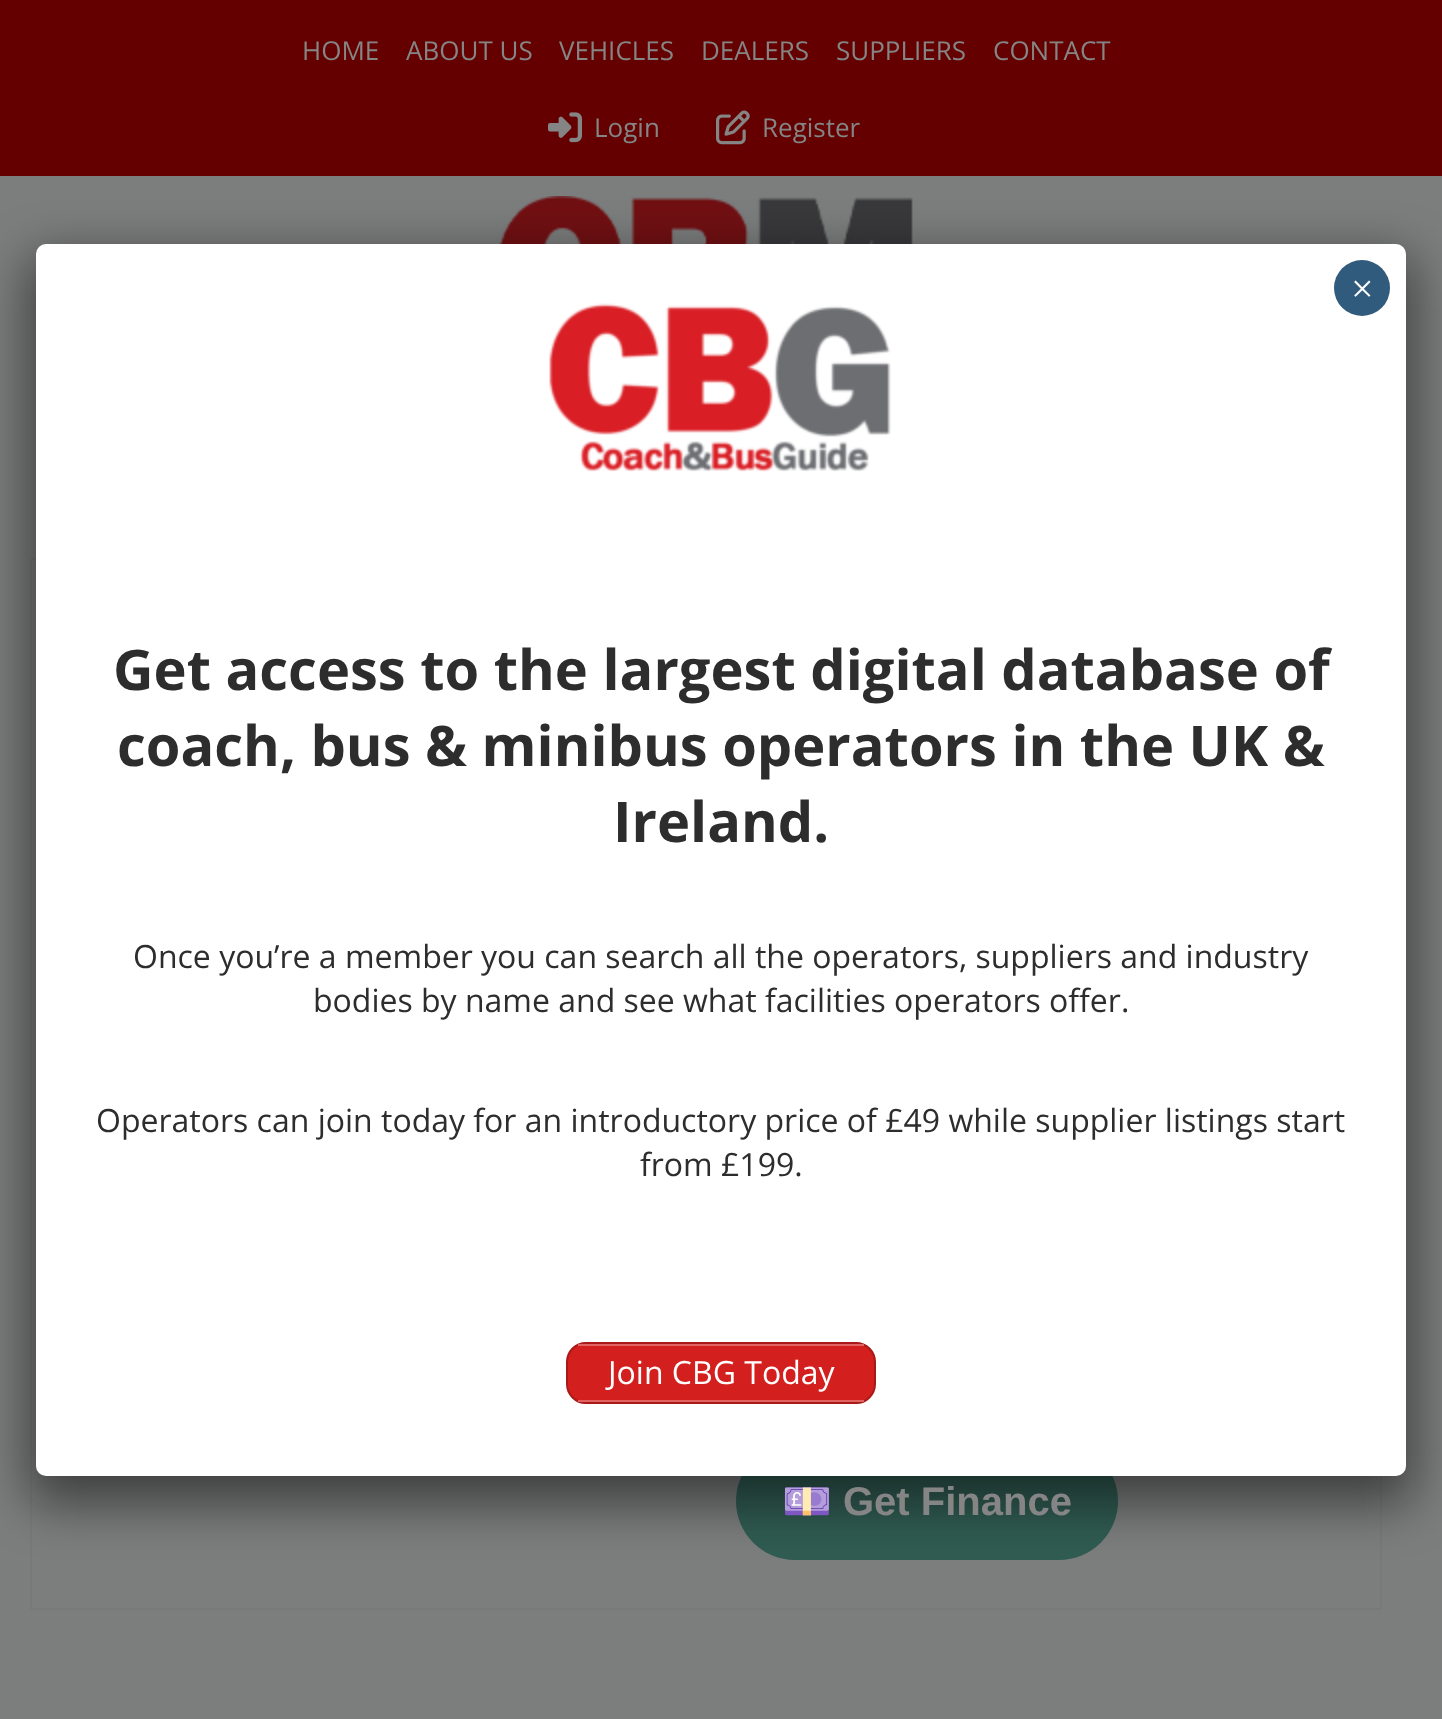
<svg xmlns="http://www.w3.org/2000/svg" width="1442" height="1719">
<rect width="100%" height="100%" fill="#640000"/>
<text x="302" y="60" style="font-family:Open Sans;font-size:26px;fill:#858585">HOME</text>
<text x="406" y="60" style="font-family:Open Sans;font-size:26px;fill:#858585">ABOUT US</text>
<text x="559" y="60" style="font-family:Open Sans;font-size:26px;fill:#858585">VEHICLES</text>
<text x="701" y="60" style="font-family:Open Sans;font-size:26px;fill:#858585">DEALERS</text>
<text x="836" y="60" style="font-family:Open Sans;font-size:26px;fill:#858585">SUPPLIERS</text>
<text x="993" y="60" style="font-family:Open Sans;font-size:26px;fill:#858585">CONTACT</text>
<image x="548" y="112" width="34" height="31" href="media/1.png"/>
<text x="594" y="137" style="font-family:Open Sans;font-size:26px;fill:#858585">Login</text>
<image x="716" y="110" width="34" height="35" href="media/2.png"/>
<text x="762" y="137" style="font-family:Open Sans;font-size:26px;fill:#858585">Register</text>
<rect y="176" width="1442" height="1543" fill="#7c7d7d"/>
<image x="499" y="196" width="414" height="48" href="media/3.png"/>
<rect x="31" y="559" width="1350" height="1050" fill="none" stroke="#797979" stroke-width="2"/>
<rect x="736" y="1442" width="382" height="118" rx="59" fill="#305c52"/>
<rect x="28" y="256" width="1386" height="1248" rx="18" fill="#02020280" filter="blur(25px)"/>
<rect x="36" y="244" width="1370" height="1232" rx="10" fill="#fff"/>
<circle cx="1362" cy="288" r="28" fill="#315b7c"/>
<text x="1351" y="302" style="font-family:Liberation Serif;font-size:40px;fill:#fff">×</text>
<image x="549" y="303" width="342" height="169" href="media/4.png"/>
<text x="113" y="690" style="font-family:Open Sans;font-size:56px;font-weight:bold;fill:#2d2d2d">Get access to the largest digital database of</text>
<text x="117" y="766" style="font-family:Open Sans;font-size:56px;font-weight:bold;fill:#2d2d2d">coach, bus &amp; minibus operators in the UK &amp;</text>
<text x="613" y="842" style="font-family:Open Sans;font-size:56px;font-weight:bold;fill:#2d2d2d">Ireland.</text>
<text x="133" y="968" style="font-family:Open Sans;font-size:32px;fill:#2d2d2d">Once you’re a member you can search all the operators, suppliers and industry</text>
<text x="313" y="1012" style="font-family:Open Sans;font-size:32px;fill:#2d2d2d">bodies by name and see what facilities operators offer.</text>
<text x="96" y="1132" style="font-family:Open Sans;font-size:32px;fill:#2d2d2d">Operators can join today for an introductory price of £49 while supplier listings start</text>
<text x="640" y="1176" style="font-family:Open Sans;font-size:32px;fill:#2d2d2d">from £199.</text>
<rect x="567" y="1343" width="308" height="60" rx="19" fill="#d31f1d" stroke="#a91918" stroke-width="2"/>
<rect x="578" y="1344" width="286" height="2" fill="#e16361"/>
<rect x="578" y="1400" width="286" height="2" fill="#e16361"/>
<text x="608" y="1384" style="font-family:Open Sans;font-size:32px;fill:#fff">Join CBG Today</text>
<text x="782" y="1515" style="font-family:Noto Color Emoji;font-size:40px;font-weight:bold;fill:#858585">💷</text>
<text x="843" y="1515" style="font-family:Liberation Sans;font-size:40px;font-weight:bold;fill:#858585">Get Finance</text>
</svg>
